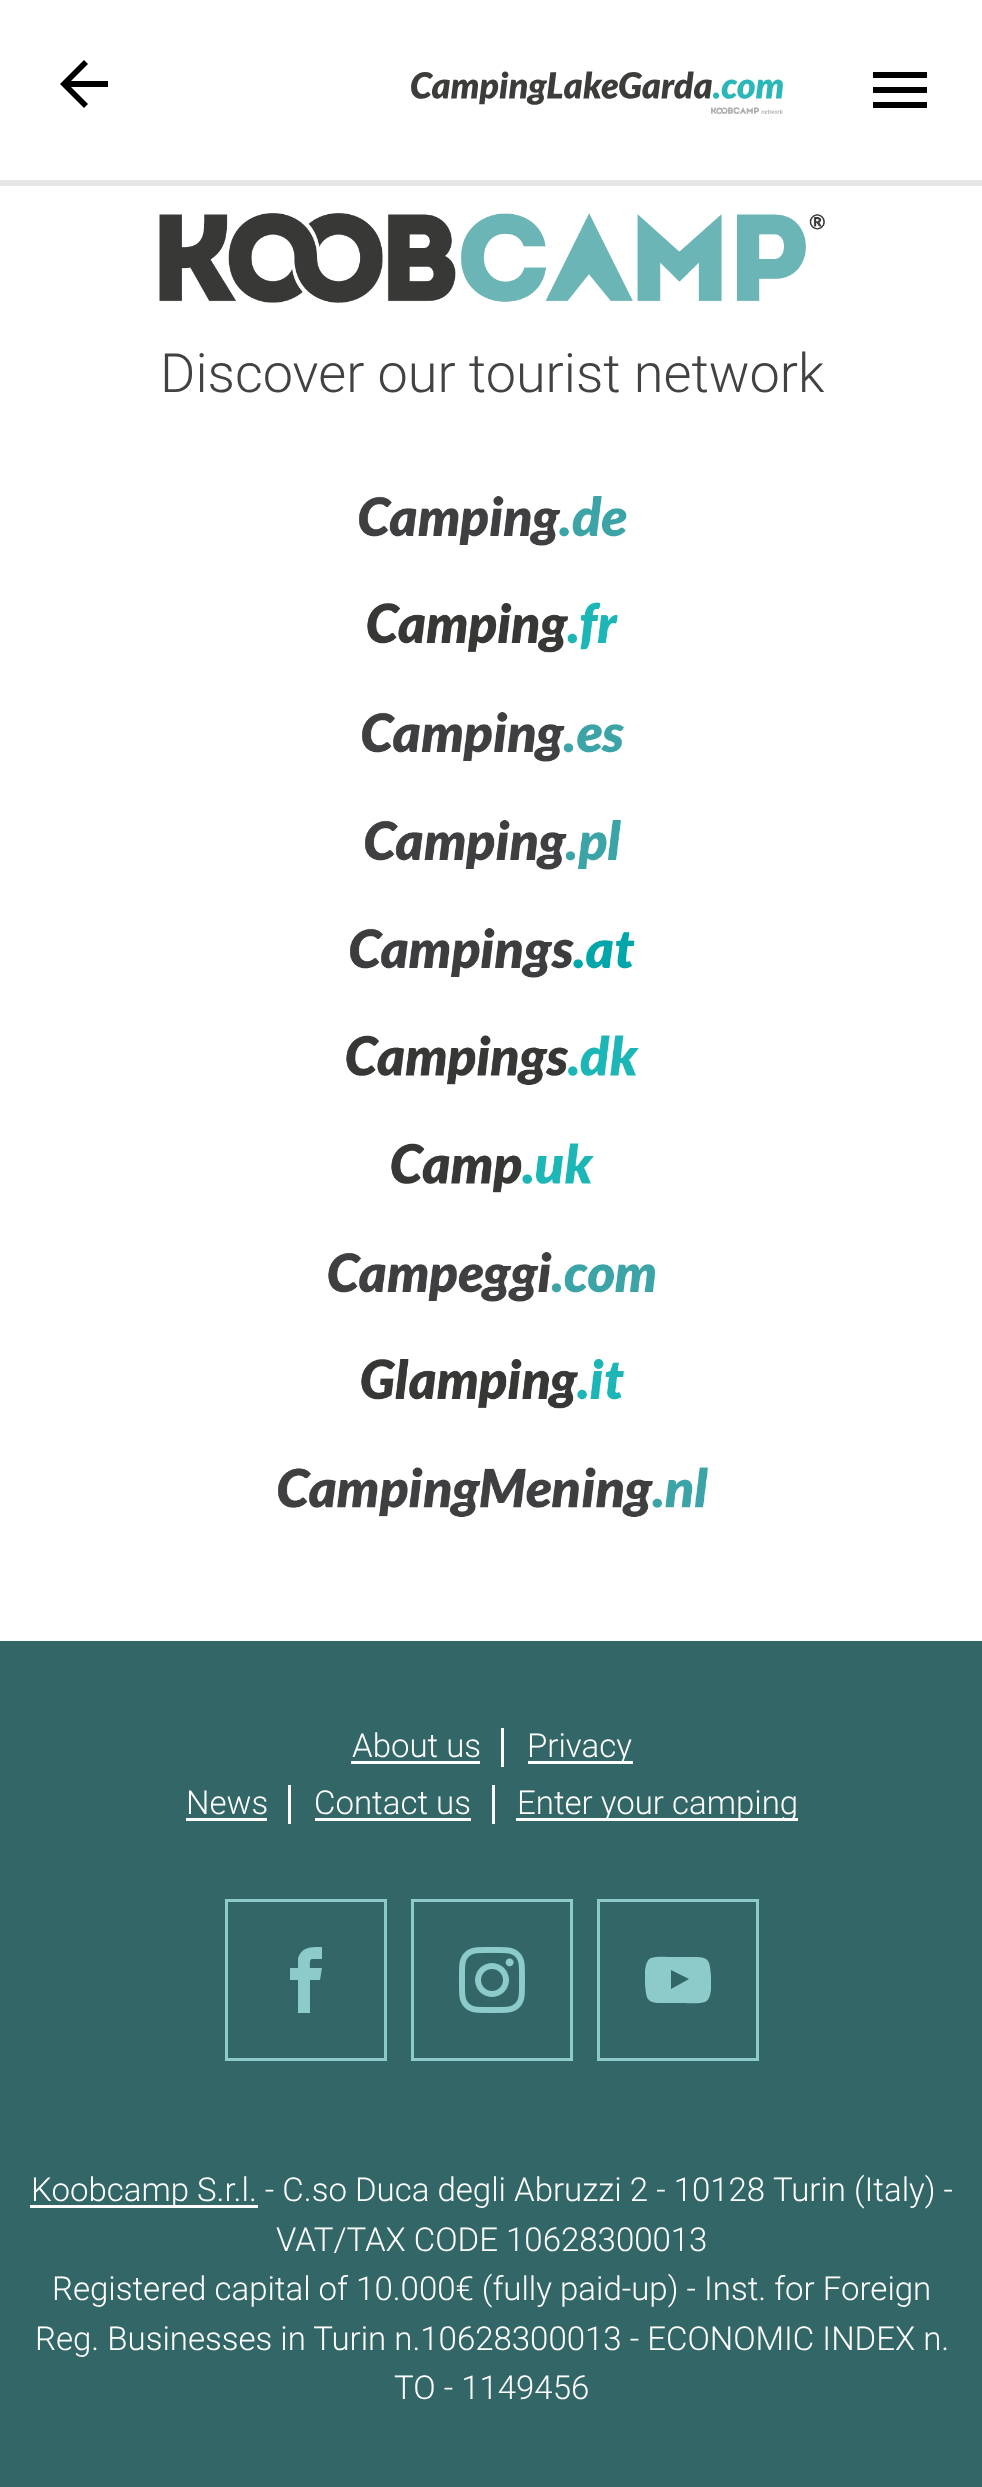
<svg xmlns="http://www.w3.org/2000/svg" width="982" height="2487">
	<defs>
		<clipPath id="clip1"><rect x="645" y="1947" width="66" height="66" /></clipPath>
	</defs>
	<rect width="100%" height="100%" fill="#FFFFFF" />
	<rect x="-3" y="-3" width="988" height="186" fill="none" stroke="#E6E6E6" stroke-width="6" />
	<path d="M108 81V87H71L88 104L84 108L60 84L84 60L88 64L71 81Z" fill="#000000" />
	<image x="411" y="71" width="372" height="43" href="assets/img1.png" />
	<path d="M873 72H927V78H873ZM873 93V87H927V93ZM873 108V102H927V108Z" fill="#000000" />
	<image x="159" y="213" width="666" height="90" href="assets/img2.png" />
	<text x="160" y="392" font-family="Roboto" font-size="54" font-weight="300" fill="#424242">Discover our tourist network</text>
	<image x="359" y="496" width="268" height="50" href="assets/img3.png" />
	<image x="367" y="602" width="251" height="51" href="assets/img4.png" />
	<image x="362" y="712" width="262" height="50" href="assets/img5.png" />
	<image x="365" y="820" width="256" height="50" href="assets/img6.png" />
	<image x="350" y="928" width="285" height="50" href="assets/img7.png" />
	<image x="346" y="1035" width="293" height="50" href="assets/img8.png" />
	<image x="391" y="1143" width="203" height="50" href="assets/img9.png" />
	<image x="328" y="1252" width="328" height="50" href="assets/img10.png" />
	<image x="361" y="1359" width="263" height="50" href="assets/img11.png" />
	<image x="278" y="1467" width="430" height="50" href="assets/img12.png" />
	<rect x="0" y="1641" width="982" height="846" fill="#336666" />
	<text x="352" y="1757" font-family="Roboto" font-size="33" font-weight="300" fill="#FFFFFF">About us</text>
	<rect x="351" y="1761" width="129" height="3" fill="#FFFFFF" />
	<rect x="501" y="1728" width="3" height="39" fill="#FFFFFF" />
	<rect x="528" y="1761" width="105" height="3" fill="#FFFFFF" />
	<g font-family="Roboto" font-size="33" font-weight="300" fill="#FFFFFF">
		<text x="527" y="1757">Privacy</text>
		<text x="186" y="1814">News</text>
	</g>
	<rect x="186" y="1818" width="81" height="3" fill="#FFFFFF" />
	<rect x="288" y="1785" width="3" height="39" fill="#FFFFFF" />
	<text x="314" y="1814" font-family="Roboto" font-size="33" font-weight="300" fill="#FFFFFF">Contact us</text>
	<rect x="315" y="1818" width="156" height="3" fill="#FFFFFF" />
	<rect x="492" y="1785" width="3" height="39" fill="#FFFFFF" />
	<rect x="516" y="1818" width="282" height="3" fill="#FFFFFF" />
	<text x="517" y="1814" font-family="Roboto" font-size="33" font-weight="300" fill="#FFFFFF">Enter your camping</text>
	<rect x="226.5" y="1900.5" width="159" height="159" fill="none" stroke="#8DCACA" stroke-width="3" />
	<path d="M312 1959H322V1947C313 1947 301 1946 298 1959V1968H290V1980H298V2013H310V1980H320L322 1968H310C310 1966 309 1959 312 1959" fill="#8DCACA" />
	<rect x="412.5" y="1900.5" width="159" height="159" fill="none" stroke="#8DCACA" stroke-width="3" />
	<image x="459" y="1947" width="66" height="66" href="assets/img13.png" />
	<rect x="598.5" y="1900.5" width="159" height="159" fill="none" stroke="#8DCACA" stroke-width="3" />
	<g clip-path="url(#clip1)">
		<path d="M710 1967C709 1957 702 1957 694 1957H673C668 1957 656 1956 651 1958C642 1962 645 1986 646 1993C647 2004 656 2003 665 2003H683C688 2003 700 2004 705 2002C714 1998 711 1974 710 1967ZM671 1989V1970L689 1979Z" fill="#8DCACA" />
	</g>
	<rect x="30" y="2205" width="228" height="3" fill="#FFFFFF" />
	<g font-family="Roboto" font-size="33" font-weight="300" fill="#FFFFFF">
		<text x="31" y="2201">Koobcamp S.r.l. - C.so Duca degli Abruzzi 2 - 10128</text>
		<text x="773" y="2201">Turin (Italy) -</text>
		<text x="276" y="2251">VAT/TAX CODE 10628300013</text>
		<text x="52" y="2300">Registered capital of 10.000€ (fully paid-up) - Inst. for Foreign</text>
		<text x="35" y="2350">Reg. Businesses in Turin n.10628300013 - ECONOMIC INDEX n.</text>
		<text x="394" y="2399">TO - 1149456</text>
	</g>
</svg>
